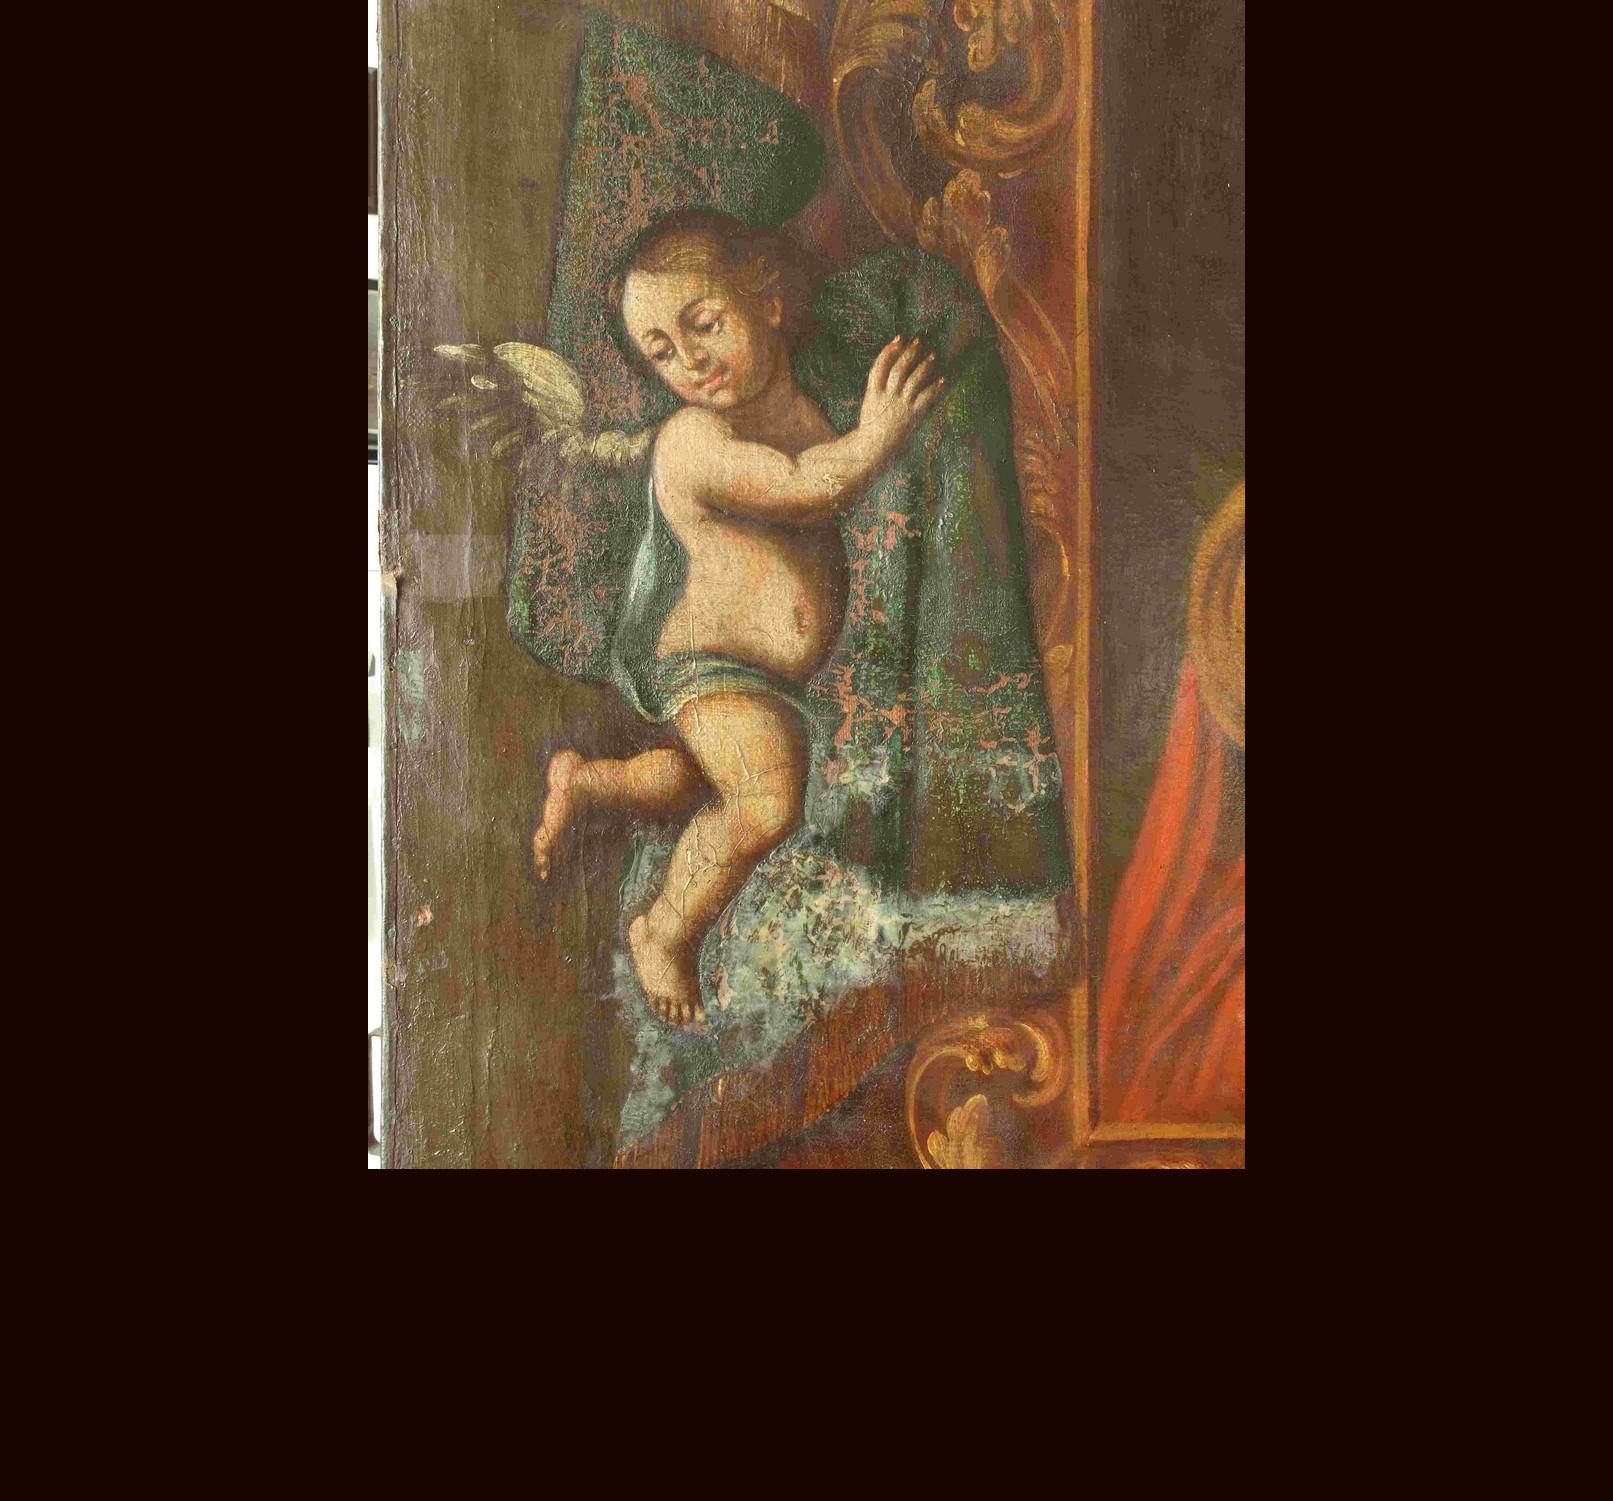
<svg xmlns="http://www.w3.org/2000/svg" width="1613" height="1501">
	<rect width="100%" height="100%" fill="#180400" />
	<image x="368" y="0" width="877" height="1169" href="assets/img1.png" />
</svg>
